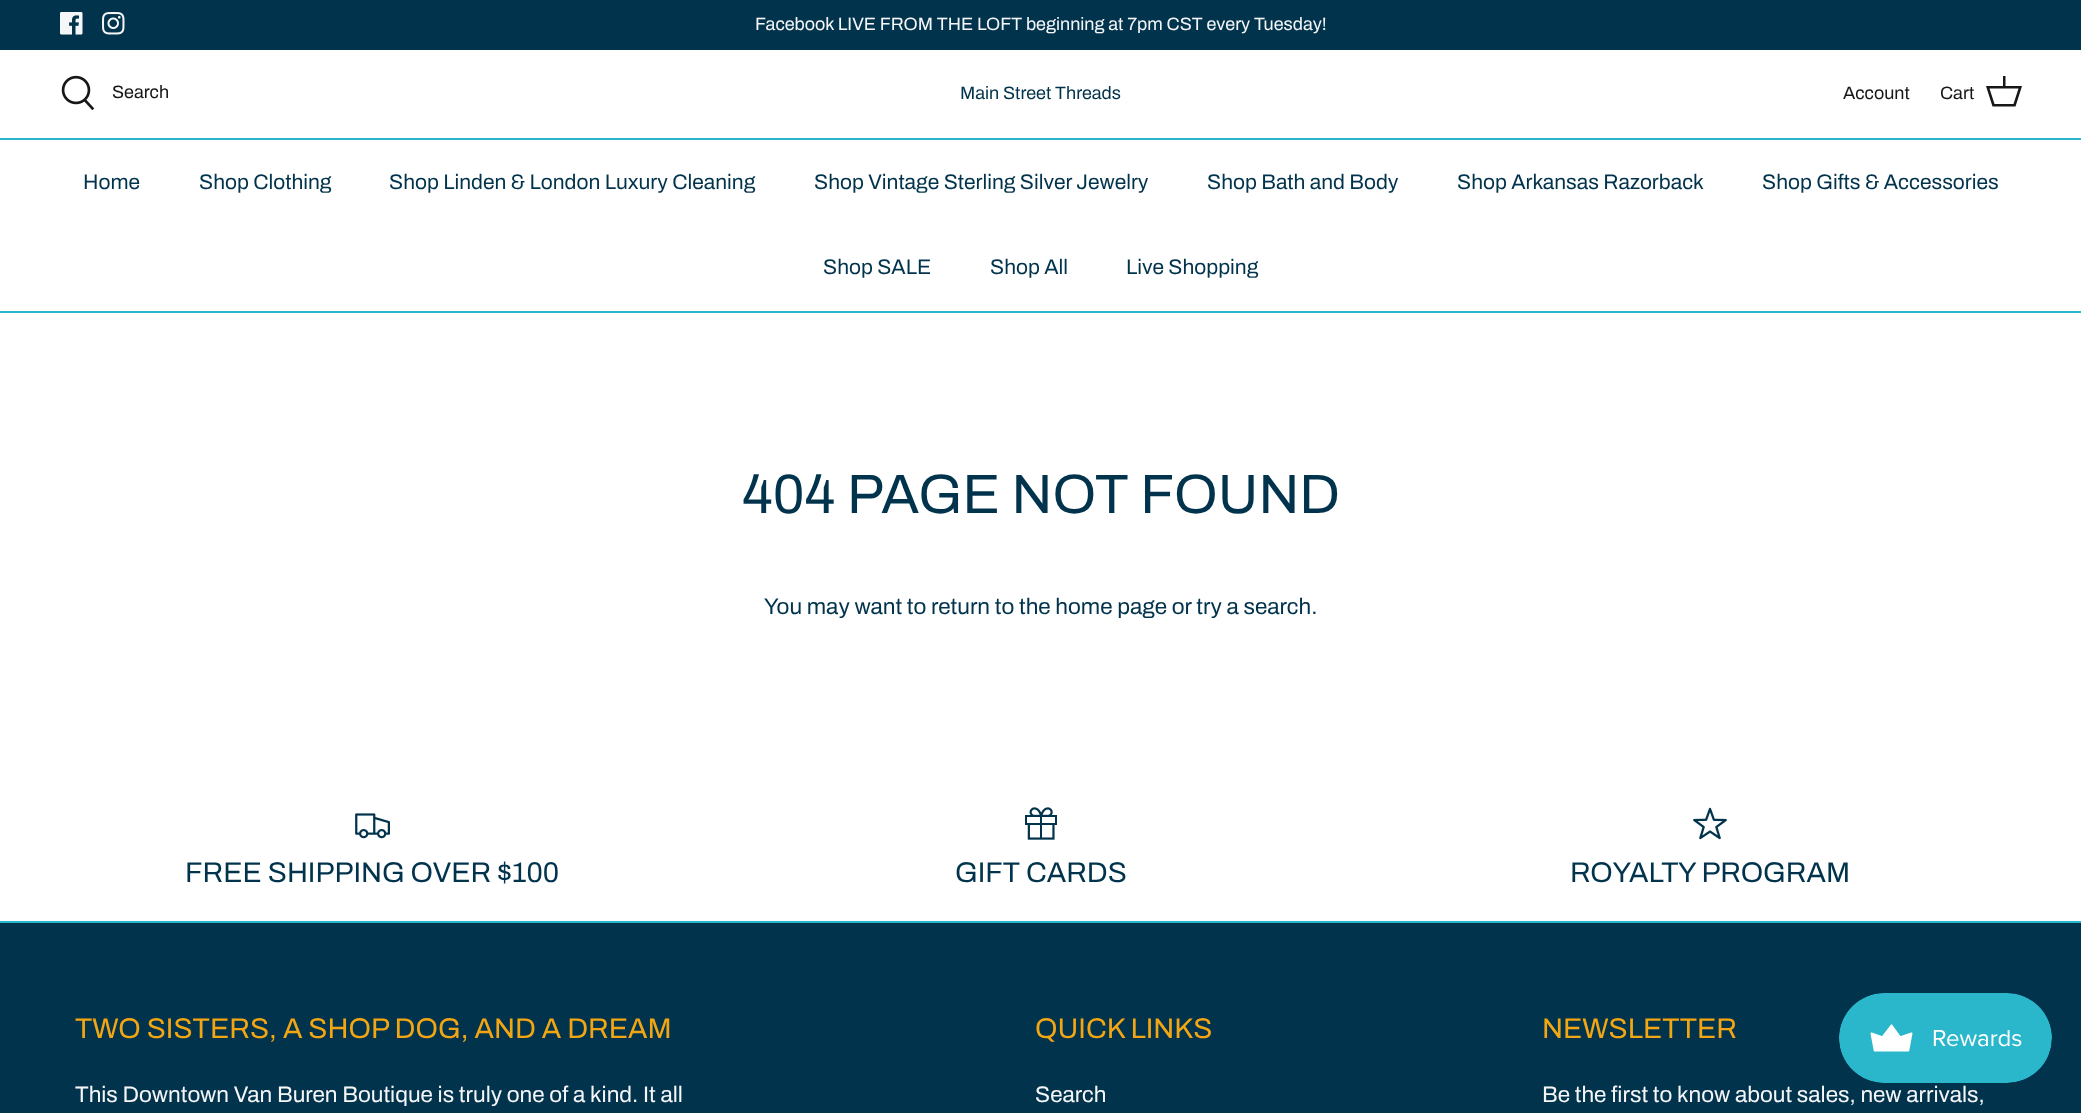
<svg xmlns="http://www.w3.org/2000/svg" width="2081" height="1113">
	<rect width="100%" height="100%" fill="#FFFFFF" />
	<rect x="0" y="0" width="2081" height="50" fill="#02334C" />
	<image x="60" y="12" width="23" height="23" href="assets/img1.png" />
	<image x="102" y="12" width="23" height="23" href="assets/img2.png" />
	<text x="755" y="30" font-family="Archivo" font-size="18" fill="#F4F6F8">Facebook LIVE FROM THE LOFT beginning at 7pm CST every Tuesday!</text>
	<rect x="0" y="138" width="2081" height="2" fill="#2AB7CB" />
	<image x="61" y="75" width="34" height="36" href="assets/img3.png" />
	<text x="112" y="98" font-family="Archivo" font-size="18" fill="#171717">Search</text>
	<text x="960" y="99" font-family="Archivo" font-size="18" fill="#02334C">Main Street Threads</text>
	<g font-family="Archivo" font-size="18" fill="#171717">
		<text x="1843" y="99">Account</text>
		<text x="1940" y="99">Cart</text>
	</g>
	<path d="M2003 86V76H2005.5V86H2022L2015.5 106.5H1992.5L1986 86ZM1989.5 88.5L1994.5 104H2013.5L2018.5 88.5Z" fill="#171717" />
	<rect x="0" y="311" width="2081" height="2" fill="#2AB7CB" />
	<g font-family="Archivo" font-size="21" fill="#02334C">
		<text x="83" y="189">Home</text>
		<text x="199" y="189">Shop Clothing</text>
		<text x="389" y="189">Shop Linden &amp; London Luxury Cleaning</text>
		<text x="814" y="189">Shop Vintage Sterling Silver Jewelry</text>
		<text x="1207" y="189">Shop Bath and Body</text>
		<text x="1457" y="189">Shop Arkansas Razorback</text>
		<text x="1762" y="189">Shop Gifts &amp; Accessories</text>
		<text x="823" y="274">Shop SALE</text>
		<text x="990" y="274">Shop All</text>
		<text x="1126" y="274">Live Shopping</text>
	</g>
	<text x="742" y="513" font-family="Archivo" font-size="55.5" fill="#02334C">404 PAGE NOT FOUND</text>
	<text x="764" y="614" font-family="Archivo" font-size="22.5" fill="#02334C">You may want to return to the home page or try a search.</text>
	<rect x="0" y="923" width="2081" height="190" fill="#02334C" />
	<image x="355" y="813" width="35" height="26" href="assets/img4.png" />
	<text x="185" y="882" font-family="Archivo" font-size="28.5" fill="#02334C">FREE SHIPPING OVER $100</text>
	<image x="1025" y="807" width="32" height="33" href="assets/img5.png" />
	<text x="955" y="882" font-family="Archivo" font-size="28.5" fill="#02334C">GIFT CARDS</text>
	<image x="1693" y="807" width="34" height="33" href="assets/img6.png" />
	<text x="1570" y="882" font-family="Archivo" font-size="28.5" fill="#02334C">ROYALTY PROGRAM</text>
	<rect x="0" y="921" width="2081" height="2" fill="#2AB7CB" />
	<text x="75" y="1038" font-family="Archivo" font-size="28.5" fill="#F2A613">TWO SISTERS, A SHOP DOG, AND A DREAM</text>
	<text x="75" y="1102" font-family="Archivo" font-size="22.5" fill="#F4F6F8">This Downtown Van Buren Boutique is truly one of a kind. It all</text>
	<text x="1035" y="1038" font-family="Archivo" font-size="28.5" fill="#F2A613">QUICK LINKS</text>
	<text x="1035" y="1102" font-family="Archivo" font-size="22.5" fill="#F4F6F8">Search</text>
	<text x="1542" y="1038" font-family="Archivo" font-size="28.5" fill="#F2A613">NEWSLETTER</text>
	<text x="1542" y="1102" font-family="Archivo" font-size="22.5" fill="#F4F6F8">Be the first to know about sales, new arrivals,</text>
	<image x="1839" y="993" width="213" height="90" href="assets/img7.png" />
</svg>
